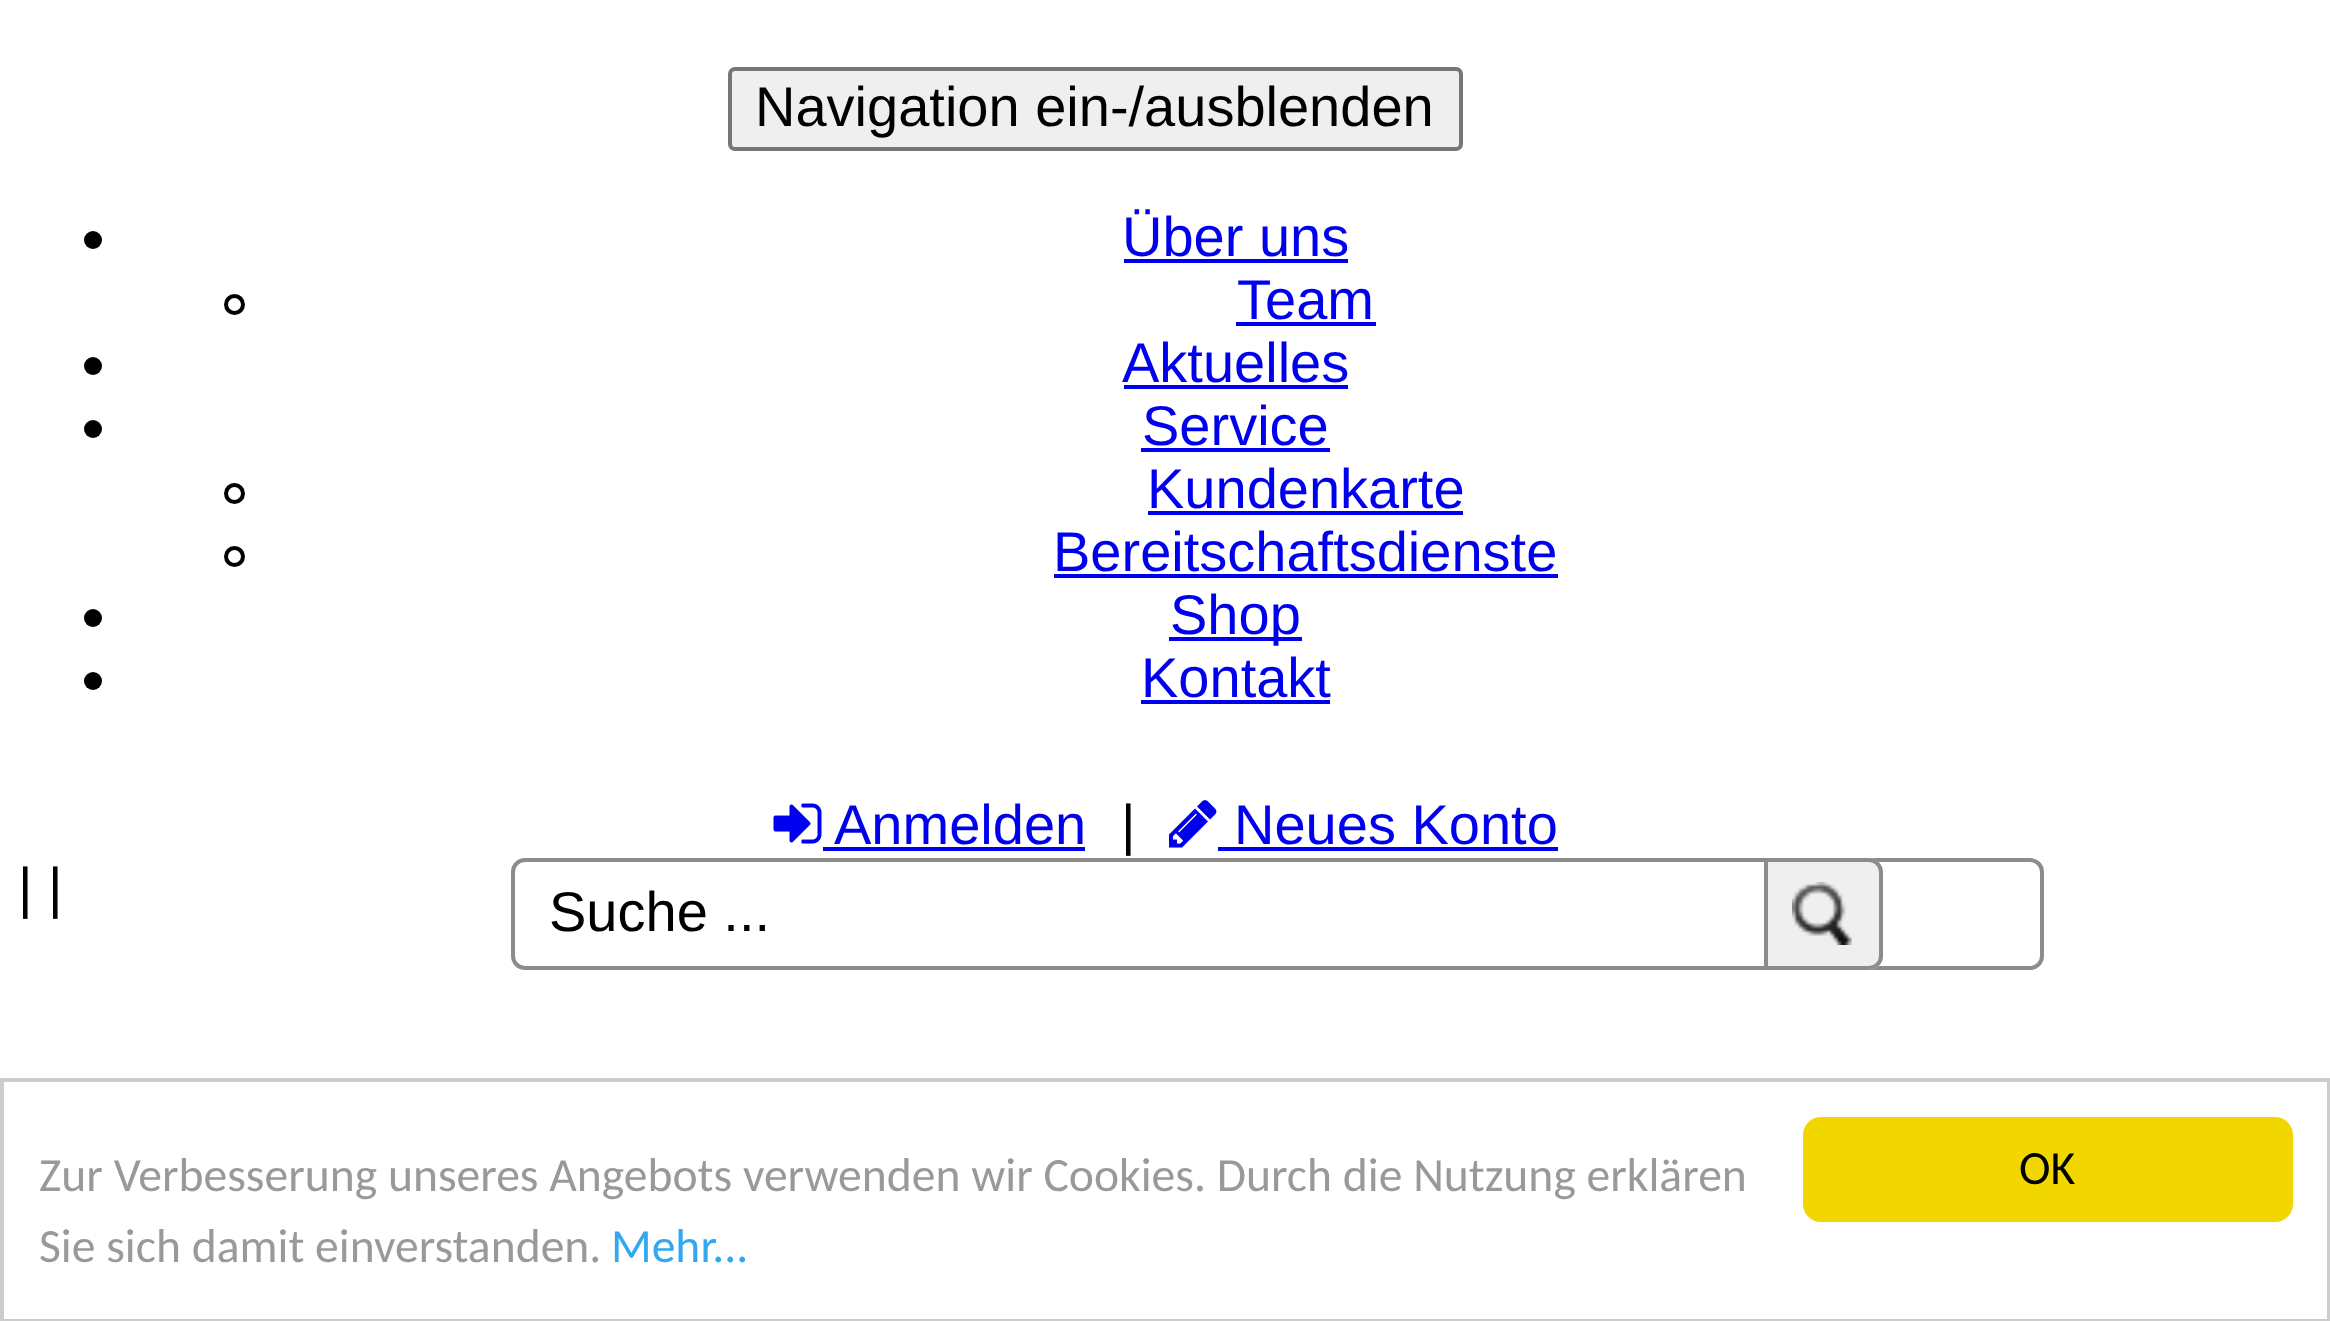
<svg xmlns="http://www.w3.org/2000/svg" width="2330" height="1321">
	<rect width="100%" height="100%" fill="#FFFFFF" />
	<rect x="730" y="69" width="731" height="80" rx="5" fill="#EFEFEF" stroke="#767676" stroke-width="4" />
	<text x="755" y="126" font-family="Liberation Sans" font-size="56" fill="#000000">Navigation ein-/ausblenden</text>
	<circle cx="93" cy="240" r="9" fill="#000000" />
	<text x="1122" y="256" font-family="Liberation Sans" font-size="56" fill="#0000EE">Über uns</text>
	<rect x="1124" y="259" width="224" height="4" fill="#0000EE" />
	<circle cx="234.5" cy="304.5" r="8.5" fill="none" stroke="#000000" stroke-width="4" />
	<text x="1237" y="319" font-family="Liberation Sans" font-size="56" fill="#0000EE">Team</text>
	<rect x="1236" y="322" width="140" height="4" fill="#0000EE" />
	<circle cx="93" cy="366" r="9" fill="#000000" />
	<text x="1122" y="382" font-family="Liberation Sans" font-size="56" fill="#0000EE">Aktuelles</text>
	<rect x="1124" y="385" width="224" height="4" fill="#0000EE" />
	<circle cx="93" cy="429" r="9" fill="#000000" />
	<text x="1142" y="445" font-family="Liberation Sans" font-size="56" fill="#0000EE">Service</text>
	<rect x="1141" y="448" width="189" height="4" fill="#0000EE" />
	<circle cx="234.5" cy="493.5" r="8.5" fill="none" stroke="#000000" stroke-width="4" />
	<text x="1147" y="508" font-family="Liberation Sans" font-size="56" fill="#0000EE">Kundenkarte</text>
	<rect x="1148" y="511" width="315" height="4" fill="#0000EE" />
	<circle cx="234.5" cy="556.5" r="8.5" fill="none" stroke="#000000" stroke-width="4" />
	<text x="1053" y="571" font-family="Liberation Sans" font-size="56" fill="#0000EE">Bereitschaftsdienste</text>
	<rect x="1054" y="574" width="504" height="4" fill="#0000EE" />
	<circle cx="93" cy="618" r="9" fill="#000000" />
	<rect x="1169" y="637" width="133" height="4" fill="#0000EE" />
	<text x="1170" y="634" font-family="Liberation Sans" font-size="56" fill="#0000EE">Shop</text>
	<circle cx="93" cy="681" r="9" fill="#000000" />
	<text x="1141" y="697" font-family="Liberation Sans" font-size="56" fill="#0000EE">Kontakt</text>
	<rect x="1141" y="700" width="189" height="4" fill="#0000EE" />
	<image x="773" y="803" width="49" height="41" href="assets/img1.png" />
	<text x="834" y="844" font-family="Liberation Sans" font-size="56" fill="#0000EE">Anmelden</text>
	<rect x="823" y="847" width="262" height="4" fill="#0000EE" />
	<text x="1121" y="844" font-family="Liberation Sans" font-size="56" fill="#000000">|</text>
	<image x="1169" y="800" width="48" height="48" href="assets/img2.png" />
	<text x="1234" y="844" font-family="Liberation Sans" font-size="56" fill="#0000EE">Neues Konto</text>
	<rect x="1218" y="847" width="340" height="4" fill="#0000EE" />
	<text x="18" y="907" font-family="Liberation Sans" font-size="56" fill="#000000">| |</text>
	<rect x="513" y="860" width="1529" height="108" rx="12" fill="none" stroke="#8C8C8C" stroke-width="4" />
	<text x="549" y="931" font-family="Liberation Sans" font-size="56" fill="#000000">Suche ...</text>
	<path d="M1764 858H1869C1876.5 858 1883 864.5 1883 872V956C1883 963.5 1876.5 970 1869 970H1764Z" fill="#EFEFEF" />
	<image x="1792" y="882" width="60" height="63" href="assets/img3.png" />
	<path d="M1766 860H1869C1875.5 860 1881 865.5 1881 872V956C1881 962.5 1875.5 968 1869 968H1766Z" fill="none" stroke="#8C8C8C" stroke-width="4" />
	<rect x="2" y="1080" width="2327" height="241" fill="none" stroke="#CCCCCC" stroke-width="4" />
	<g font-family="Carlito" font-size="47.6" fill="#999999">
		<text x="39" y="1191">Zur Verbesserung unseres Angebots verwenden wir Cookies. Durch die Nutzung erklären</text>
		<text x="39" y="1262">Sie sich damit einverstanden.</text>
	</g>
	<text x="611" y="1262" font-family="Carlito" font-size="47.6" fill="#31A8F0">Mehr...</text>
	<rect x="1803" y="1117" width="490" height="105" rx="18" fill="#F1D600" />
	<text x="2019" y="1184" font-family="Carlito" font-size="47.6" fill="#000000">OK</text>
</svg>
